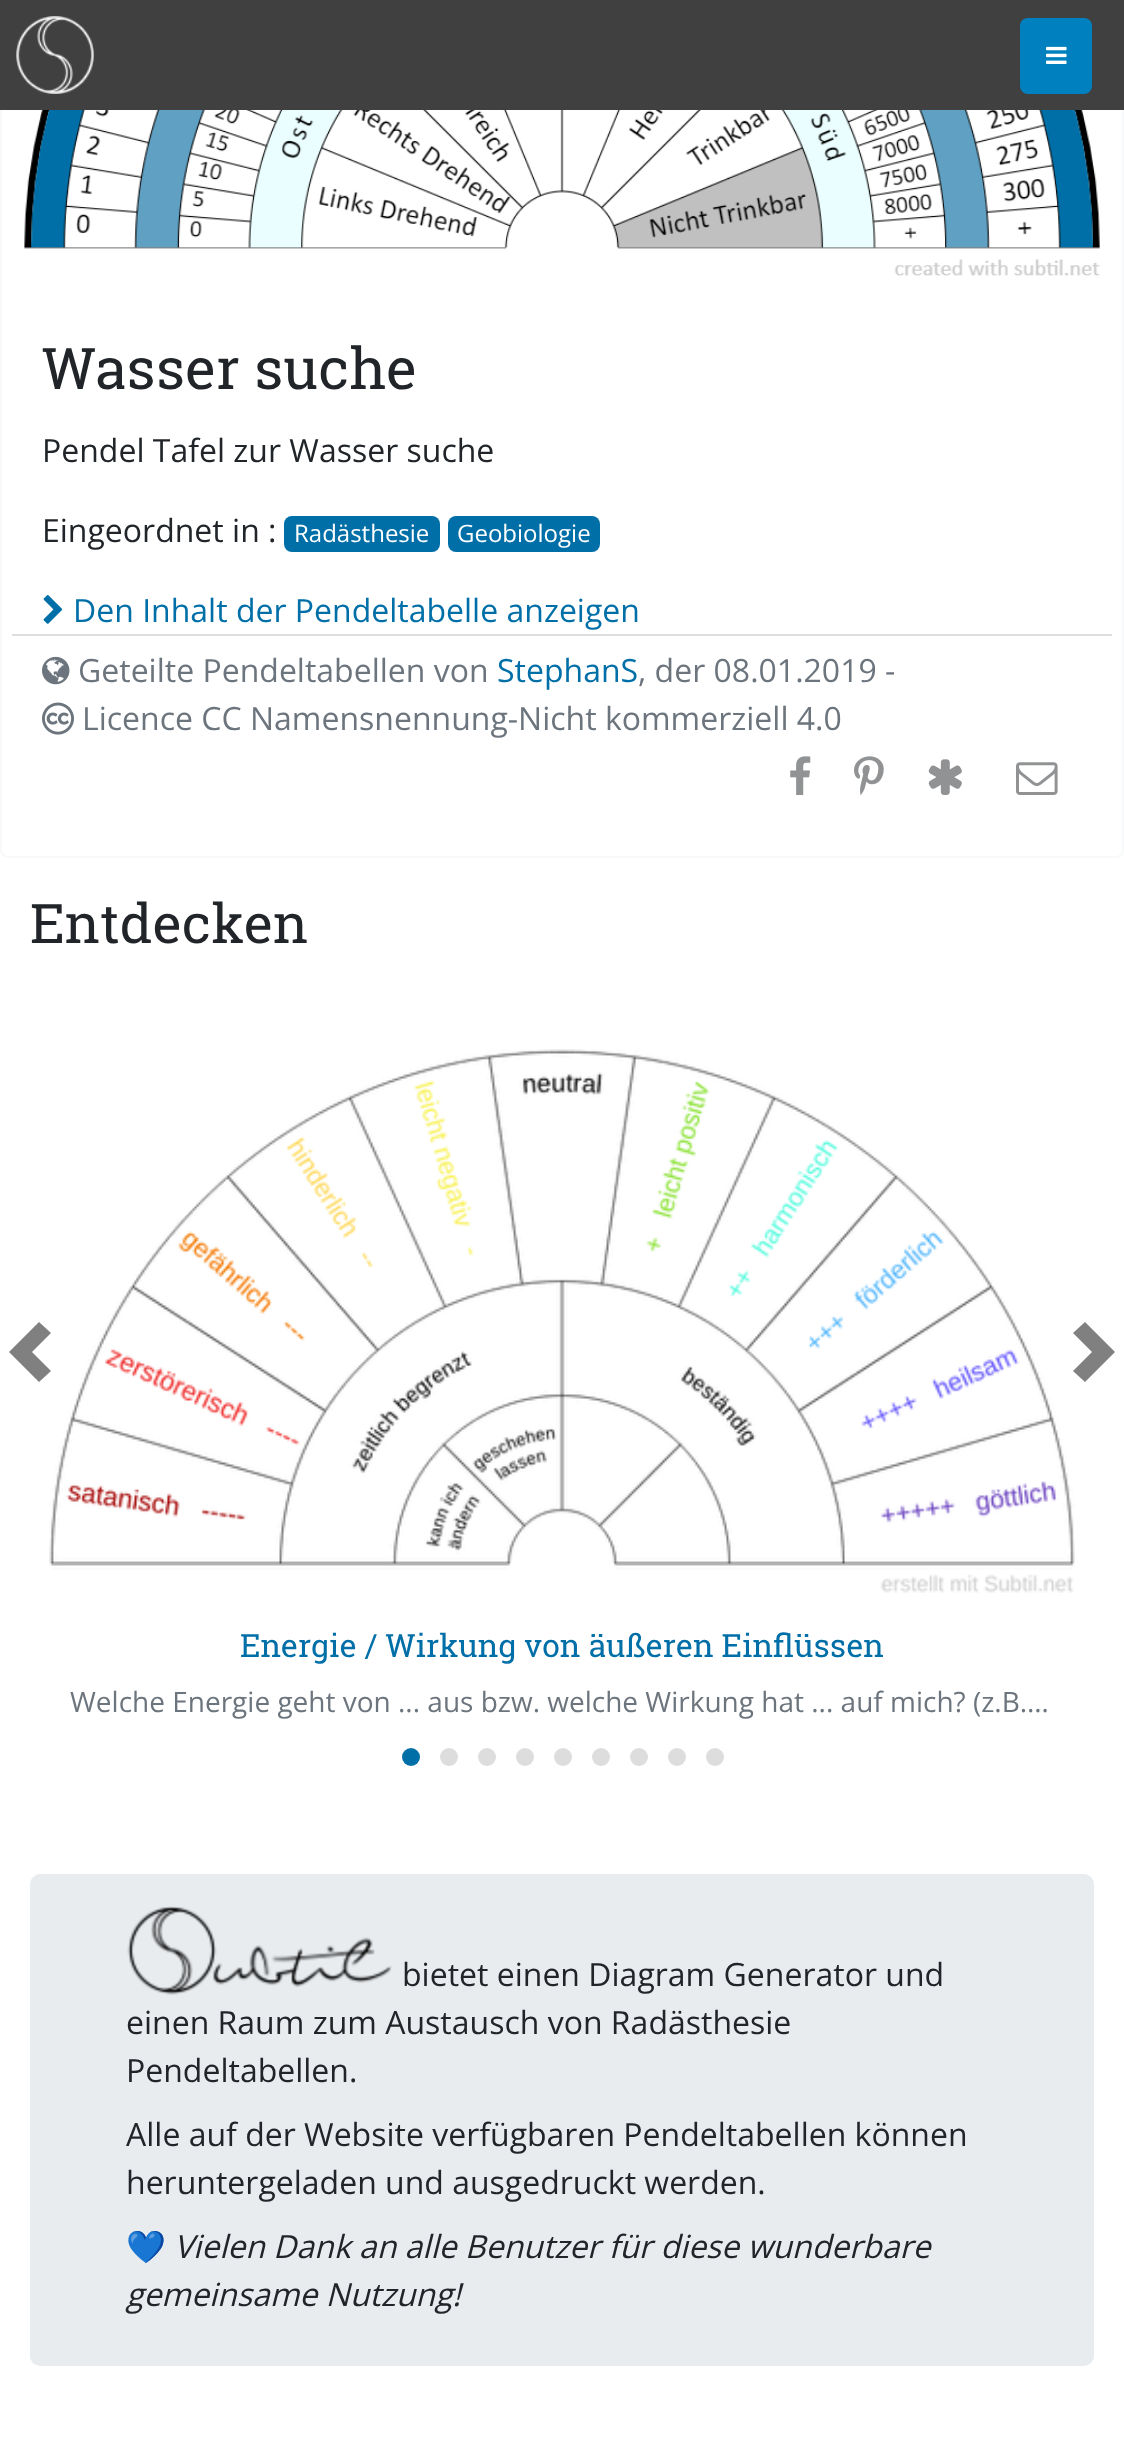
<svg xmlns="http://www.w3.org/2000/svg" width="1124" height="2440">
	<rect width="100%" height="100%" fill="#FFFFFF" />
	<rect x="1" y="-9" width="1122" height="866" rx="7" fill="none" stroke="#F8F9FA" stroke-width="2" />
	<rect x="0" y="0" width="1124" height="110" fill="#404040" />
	<image x="16" y="16" width="78" height="78" href="assets/img1.png" />
	<rect x="1020" y="18" width="72" height="76" rx="8" fill="#0180C0" />
	<image x="1046" y="46" width="21" height="18" href="assets/img2.png" />
	<image x="24" y="110" width="1076" height="166" href="assets/img3.png" />
	<text x="42" y="389" font-family="Roboto Slab" font-size="57.5" fill="#212529">Wasser suche</text>
	<g font-family="Open Sans" font-size="32" fill="#212529">
		<text x="42" y="462">Pendel Tafel zur Wasser suche</text>
		<text x="42" y="542">Eingeordnet in :</text>
	</g>
	<rect x="284" y="516" width="156" height="36" rx="8" fill="#006FA8" />
	<text x="294" y="542" font-family="Open Sans" font-size="24" fill="#FFFFFF">Radästhesie</text>
	<rect x="448" y="516" width="152" height="36" rx="8" fill="#006FA8" />
	<text x="457" y="542" font-family="Open Sans" font-size="24" fill="#FFFFFF">Geobiologie</text>
	<image x="43" y="595" width="20" height="29" href="assets/img4.png" />
	<text x="73" y="622" font-family="Open Sans" font-size="32" fill="#006FA8">Den Inhalt der Pendeltabelle anzeigen</text>
	<rect x="12" y="634" width="1100" height="2" fill="#DEDEDE" />
	<image x="42" y="656" width="28" height="29" href="assets/img5.png" />
	<text x="78" y="682" font-family="Open Sans" font-size="32" fill="#6C757D">Geteilte Pendeltabellen von</text>
	<text x="497" y="682" font-family="Open Sans" font-size="32" fill="#006FA8">StephanS</text>
	<text x="638" y="682" font-family="Open Sans" font-size="32" fill="#6C757D">, der 08.01.2019 -</text>
	<image x="42" y="702" width="32" height="33" href="assets/img6.png" />
	<text x="82" y="730" font-family="Open Sans" font-size="32" fill="#6C757D">Licence CC Namensnennung-Nicht kommerziell 4.0</text>
	<image x="790" y="756" width="21" height="39" href="assets/img7.png" />
	<image x="854" y="756" width="30" height="39" href="assets/img8.png" />
	<image x="928" y="759" width="34" height="36" href="assets/img9.png" />
	<image x="1016" y="762" width="42" height="33" href="assets/img10.png" />
	<text x="30" y="943" font-family="Roboto Slab" font-size="54.5" fill="#212529">Entdecken</text>
	<image x="49" y="1049" width="1026" height="544" href="assets/img11.png" />
	<path d="M39 1322L9 1352L39 1382L51 1371L32 1352L51 1333Z" fill="#808080" />
	<path d="M1085 1322L1073 1333L1092 1352L1073 1371L1085 1382L1115 1352Z" fill="#808080" />
	<text x="240" y="1657" font-family="Roboto Slab" font-size="32" fill="#006FA8">Energie / Wirkung von äußeren Einflüssen</text>
	<text x="70" y="1712" font-family="Open Sans" font-size="28" fill="#6C757D">Welche Energie geht von ... aus bzw. welche Wirkung hat ... auf mich? (z.B.…</text>
	<circle cx="411" cy="1757" r="9" fill="#006FA8" />
	<circle cx="449" cy="1757" r="9" fill="#DDDDDD" />
	<circle cx="487" cy="1757" r="9" fill="#DDDDDD" />
	<circle cx="525" cy="1757" r="9" fill="#DDDDDD" />
	<circle cx="563" cy="1757" r="9" fill="#DDDDDD" />
	<circle cx="601" cy="1757" r="9" fill="#DDDDDD" />
	<circle cx="639" cy="1757" r="9" fill="#DDDDDD" />
	<circle cx="677" cy="1757" r="9" fill="#DDDDDD" />
	<circle cx="715" cy="1757" r="9" fill="#DDDDDD" />
	<rect x="30" y="1874" width="1064" height="492" rx="10" fill="#E9ECEF" />
	<image x="127" y="1906" width="265" height="89" href="assets/img12.png" />
	<g font-family="Open Sans" font-size="32" fill="#212529">
		<text x="402" y="1986">bietet einen Diagram Generator und</text>
		<text x="126" y="2034">einen Raum zum Austausch von Radästhesie</text>
		<text x="126" y="2082">Pendeltabellen.</text>
		<text x="126" y="2146">Alle auf der Website verfügbaren Pendeltabellen können</text>
		<text x="126" y="2194">heruntergeladen und ausgedruckt werden.</text>
	</g>
	<text x="126" y="2258" font-family="Noto Color Emoji" font-size="32" fill="#212529">💙</text>
	<g font-family="Open Sans" font-size="32" font-style="italic" fill="#212529">
		<text x="174" y="2258">Vielen Dank an alle Benutzer für diese wunderbare</text>
		<text x="126" y="2306">gemeinsame Nutzung!</text>
	</g>
</svg>
